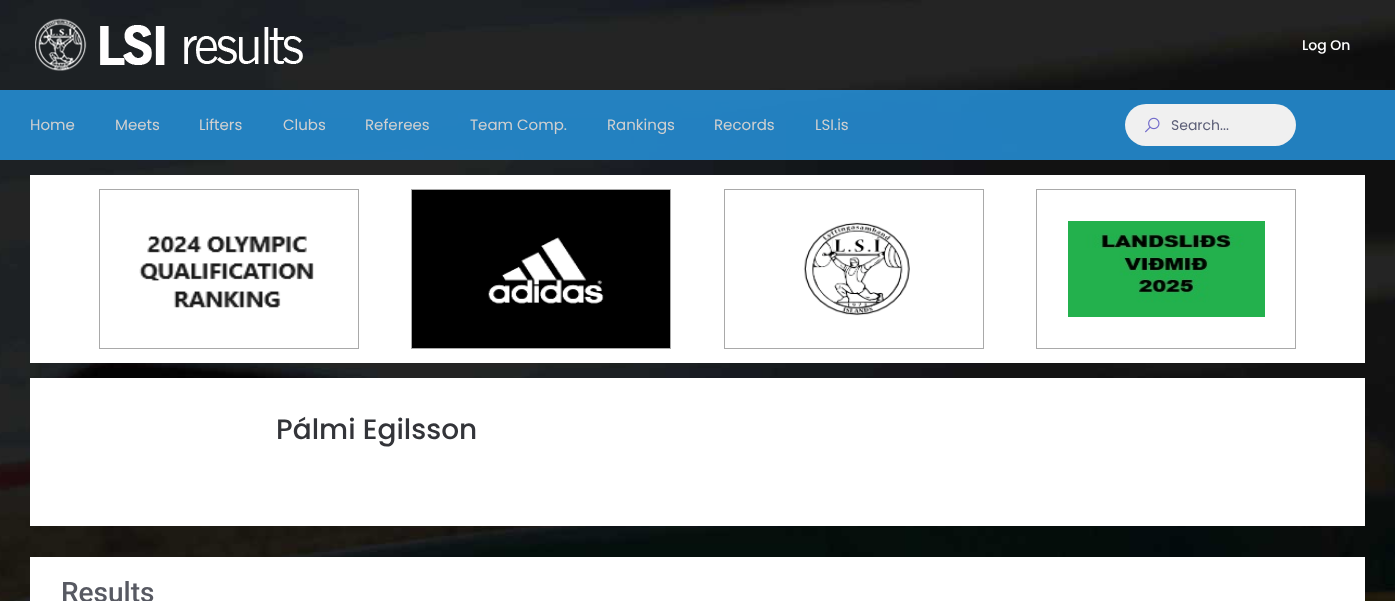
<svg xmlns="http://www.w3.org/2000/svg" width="1395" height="601">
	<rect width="100%" height="100%" fill="#FFFFFF" />
	<image x="0" y="0" width="1395" height="601" href="assets/img1.png" />
	<image x="35" y="18" width="268" height="53" href="assets/img2.png" />
	<text x="1302" y="50" font-family="Poppins" font-size="14" font-weight="500" fill="#FFFFFF">Log On</text>
	<rect x="0" y="90" width="1395" height="70" fill="#258CD1" fill-opacity="0.9" />
	<g font-family="Poppins" font-size="15" fill="#D0D0D0">
		<text x="30" y="130">Home</text>
		<text x="115" y="130">Meets</text>
		<text x="199" y="130">Lifters</text>
		<text x="283" y="130">Clubs</text>
		<text x="365" y="130">Referees</text>
		<text x="470" y="130">Team Comp.</text>
		<text x="607" y="130">Rankings</text>
		<text x="714" y="130">Records</text>
		<text x="815" y="130">LSI.is</text>
	</g>
	<rect x="1125" y="104" width="171" height="42" rx="21" fill="#F0F0F0" />
	<image x="1145" y="117" width="15" height="16" href="assets/img3.png" />
	<text x="1171" y="130" font-family="Poppins" font-size="14" fill="#5C5F77">Search...</text>
	<rect x="30" y="175" width="1335" height="188" fill="#FFFFFF" />
	<rect x="99.5" y="189.5" width="259" height="159" fill="none" stroke="#A9A9A9" />
	<image x="139" y="236" width="175" height="72" href="assets/img4.png" />
	<rect x="411.5" y="189.5" width="259" height="159" fill="#000000" stroke="#A9A9A9" />
	<image x="488" y="237" width="116" height="67" href="assets/img5.png" />
	<rect x="724.5" y="189.5" width="259" height="159" fill="none" stroke="#A9A9A9" />
	<image x="803" y="222" width="107" height="94" href="assets/img6.png" />
	<rect x="1036.5" y="189.5" width="259" height="159" fill="none" stroke="#A9A9A9" />
	<image x="1068" y="221" width="197" height="96" href="assets/img7.png" />
	<rect x="30" y="378" width="1335" height="148" fill="#FFFFFF" />
	<text x="276" y="439" font-family="Poppins" font-size="28" font-weight="500" fill="#333439">Pálmi Egilsson</text>
	<rect x="30" y="557" width="1335" height="44" fill="#FFFFFF" />
	<text x="61" y="602" font-family="Roboto" font-size="28" font-weight="500" fill="#575962">Results</text>
</svg>
